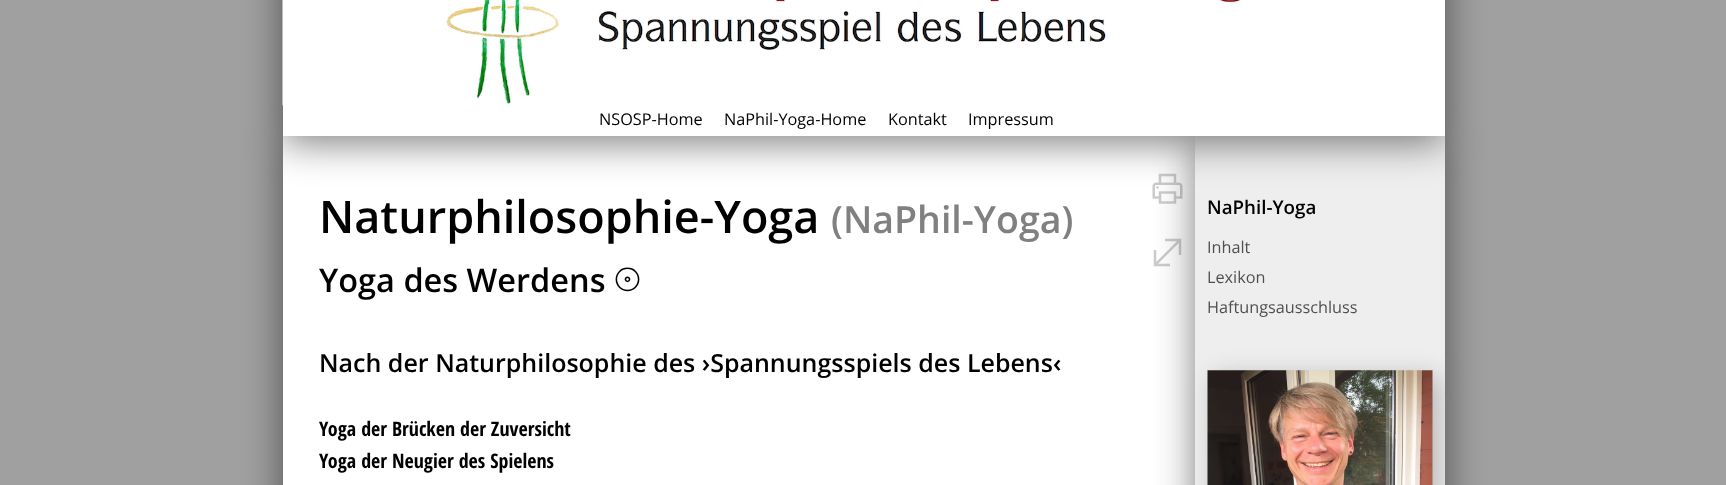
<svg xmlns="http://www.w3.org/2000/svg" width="1726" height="485">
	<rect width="100%" height="100%" fill="#A0A0A0" />
	<rect x="283" y="143" width="912" height="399" fill="#000000" fill-opacity="0.5" filter="blur(19px)" />
	<rect x="283" y="136" width="912" height="349" fill="#FFFFFF" />
	<rect x="1195" y="143" width="250" height="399" fill="#000000" fill-opacity="0.5" filter="blur(19px)" />
	<rect x="1195" y="136" width="250" height="349" fill="#EEEEEE" />
	<rect x="283" y="-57" width="1162" height="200" fill="#000000" fill-opacity="0.5" filter="blur(19px)" />
	<rect x="283" y="0" width="1162" height="136" fill="#FFFFFF" />
	<image x="282" y="0" width="959" height="106" href="assets/img1.png" />
	<g font-family="Open Sans" font-size="16.25" fill="#000000">
		<text x="599" y="125">NSOSP-Home</text>
		<text x="724" y="125">NaPhil-Yoga-Home</text>
		<text x="888" y="125">Kontakt</text>
		<text x="968" y="125">Impressum</text>
	</g>
	<text x="319" y="233" font-family="Open Sans" font-size="45" font-weight="600" fill="#000000">Naturphilosophie-Yoga</text>
	<text x="831" y="233" font-family="Open Sans" font-size="37.5" font-weight="600" fill="#808080">(NaPhil-Yoga)</text>
	<text x="319" y="292" font-family="Open Sans" font-size="32.5" font-weight="600" fill="#000000">Yoga des Werdens</text>
	<text x="614" y="292" font-family="Noto Sans Egyptian Hieroglyphs" font-size="32.5" font-weight="700" fill="#000000">𓇳</text>
	<text x="319" y="372" font-family="Open Sans" font-size="25" font-weight="600" fill="#000000">Nach der Naturphilosophie des ›Spannungsspiels des Lebens‹</text>
	<g font-family="Open Sans Condensed" font-size="20" font-weight="700" fill="#000000">
		<text x="319" y="436">Yoga der Brücken der Zuversicht</text>
		<text x="319" y="468">Yoga der Neugier des Spielens</text>
	</g>
	<image x="1152" y="173" width="31" height="31" href="assets/img2.png" />
	<image x="1153" y="238" width="29" height="29" href="assets/img3.png" />
	<text x="1207" y="214" font-family="Open Sans" font-size="18.75" font-weight="600" fill="#000000">NaPhil-Yoga</text>
	<g font-family="Open Sans" font-size="16.25" fill="#505050">
		<text x="1207" y="253">Inhalt</text>
		<text x="1207" y="283">Lexikon</text>
		<text x="1207" y="313">Haftungsausschluss</text>
	</g>
	<rect x="1214" y="376" width="225" height="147" fill="#808080" fill-opacity="0.5" filter="blur(12.5px)" />
	<image x="1207" y="370" width="226" height="115" href="assets/img4.png" />
</svg>
